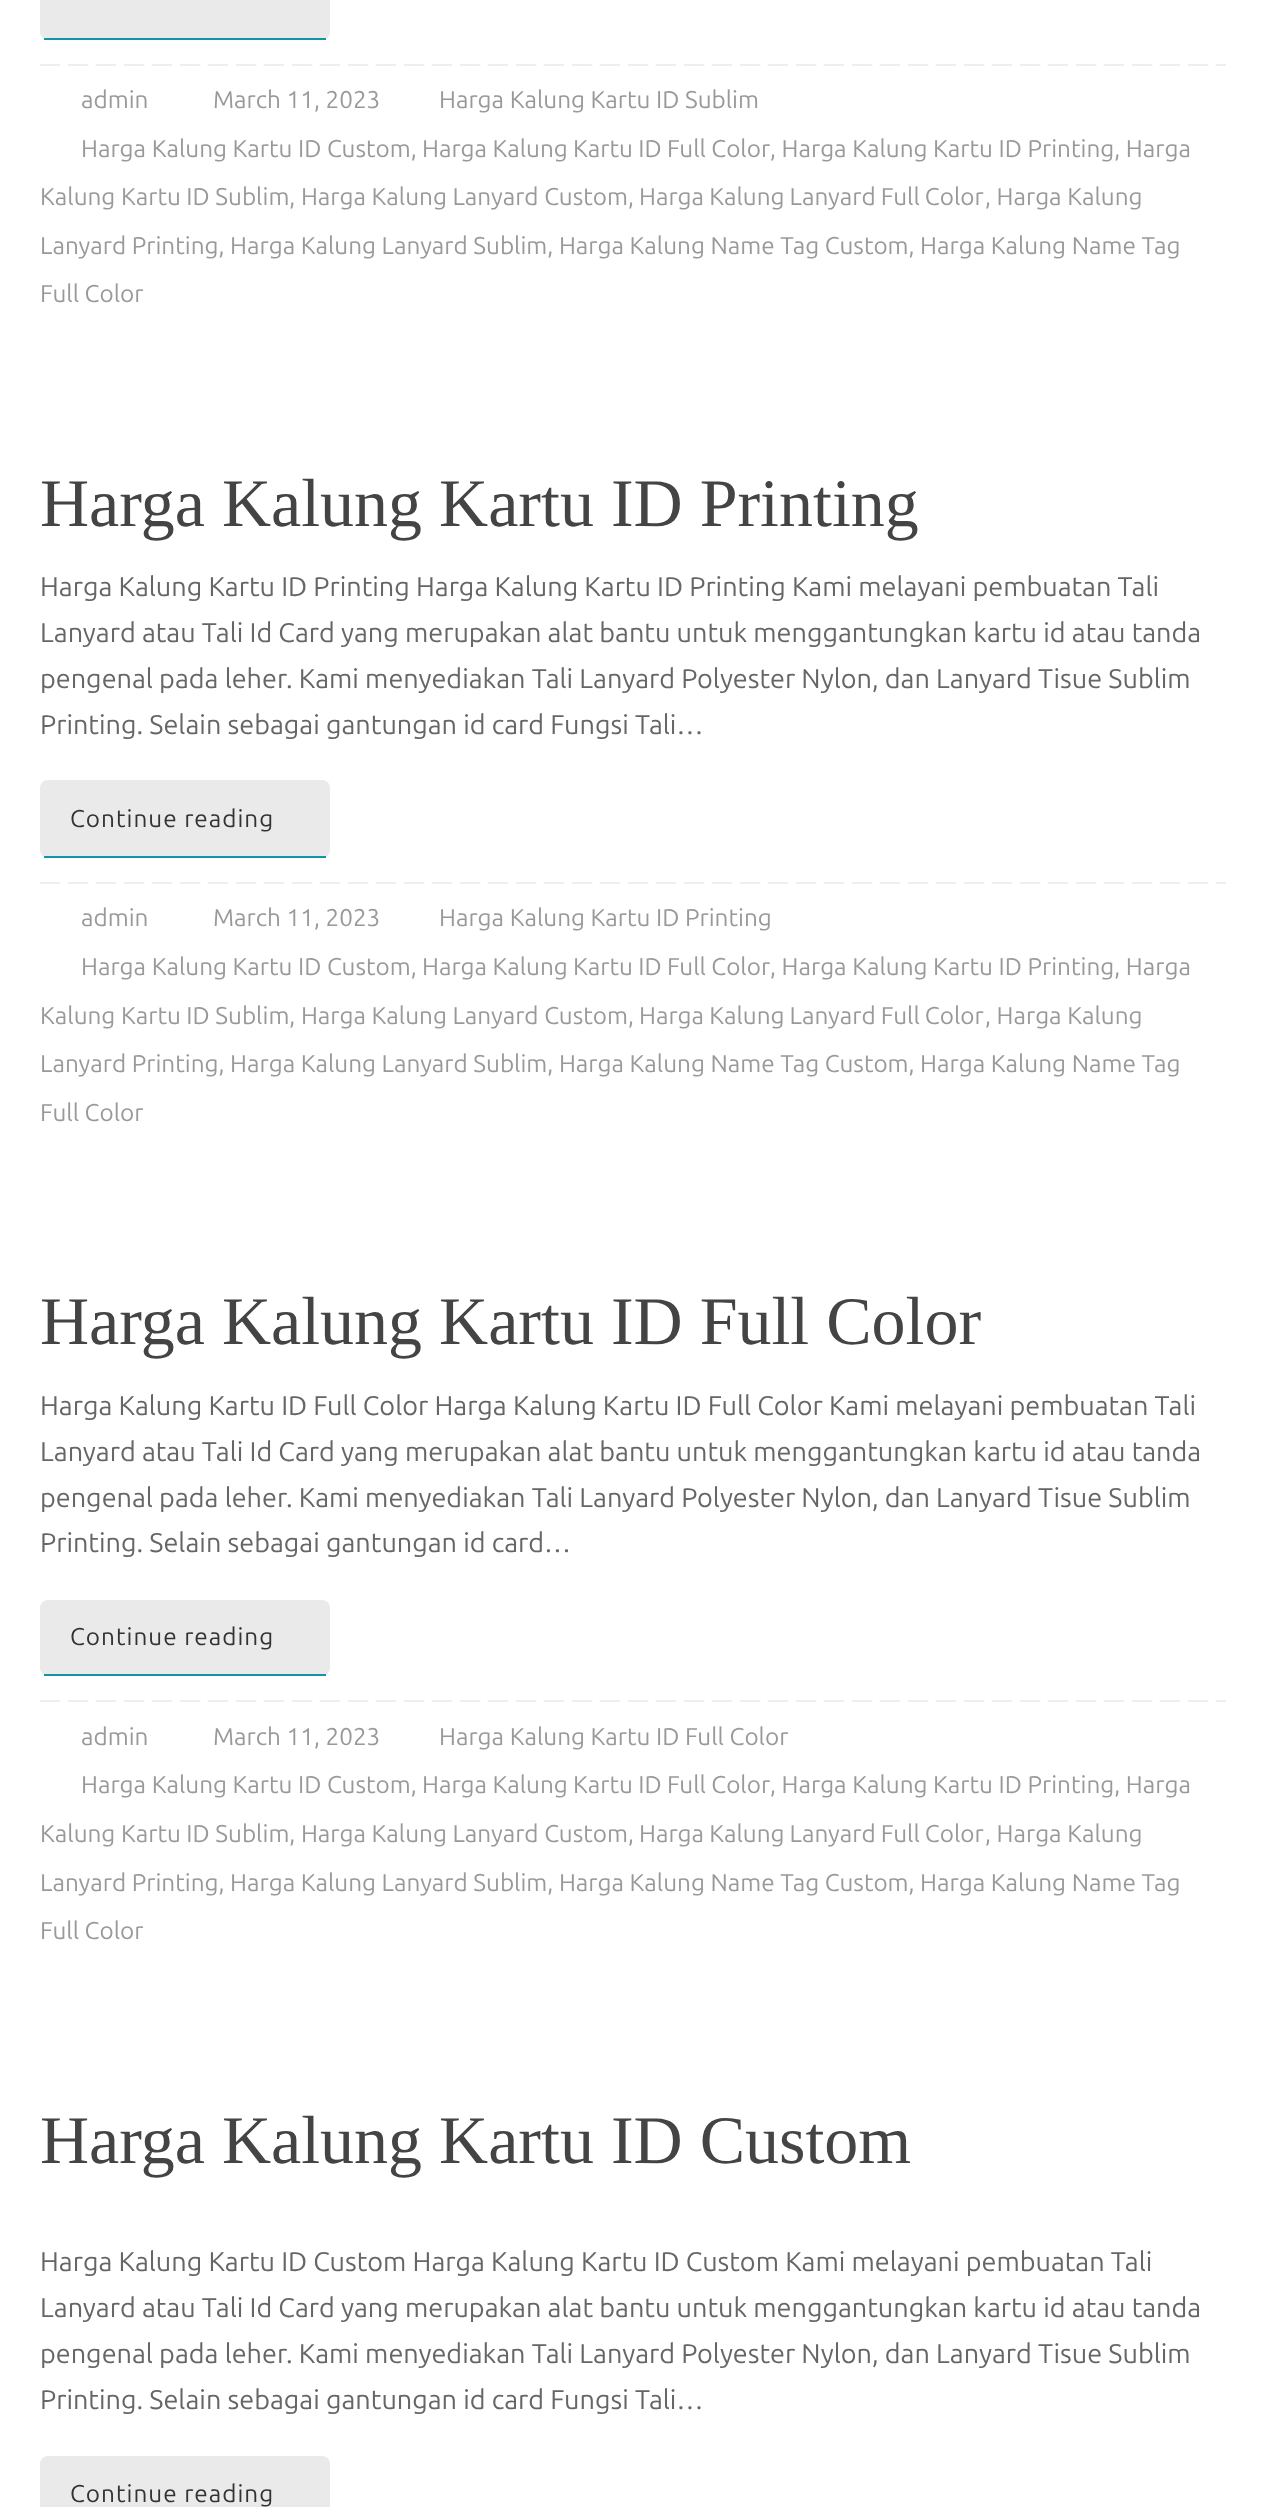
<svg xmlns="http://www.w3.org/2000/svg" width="1266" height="2507">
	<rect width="100%" height="100%" fill="#FFFFFF" />
	<rect x="40" y="-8" width="290" height="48" rx="8" fill="#EAEAEA" />
	<rect x="44" y="38" width="282" height="2" fill="#1693A5" />
	<image x="40" y="64" width="1186" height="2" href="assets/img1.png" />
	<g font-family="Ubuntu" font-size="24.3" fill="#999999">
		<text x="81" y="108">admin</text>
		<text x="213" y="108">March 11, 2023</text>
		<text x="439" y="108">Harga Kalung Kartu ID Sublim</text>
		<text x="81" y="157">Harga Kalung Kartu ID Custom,</text>
		<text x="422" y="157" word-spacing="-0.25">Harga Kalung Kartu ID Full Color</text>
		<text x="770" y="157">, Harga Kalung Kartu ID Printing, Harga</text>
		<text x="40" y="205">Kalung Kartu ID Sublim, Harga Kalung Lanyard Custom,</text>
		<text x="639" y="205" word-spacing="-0.5">Harga Kalung Lanyard Full Color</text>
		<text x="985" y="205">, Harga Kalung</text>
		<text x="40" y="254">Lanyard Printing, Harga Kalung Lanyard Sublim, Harga Kalung Name Tag Custom, Harga Kalung Name Tag</text>
		<text x="40" y="302">Full Color</text>
	</g>
	<text x="40" y="526" font-family="Liberation Serif" font-size="68" fill="#444444">Harga Kalung Kartu ID Printing</text>
	<g font-family="Ubuntu" font-size="27" fill="#666666">
		<text x="40" y="596">Harga Kalung Kartu ID Printing Harga Kalung Kartu ID Printing Kami melayani pembuatan Tali</text>
		<text x="40" y="642">Lanyard atau Tali Id Card yang merupakan alat bantu untuk menggantungkan kartu id atau tanda</text>
		<text x="40" y="688">pengenal pada leher. Kami menyediakan Tali Lanyard Polyester Nylon, dan Lanyard Tisue Sublim</text>
		<text x="40" y="734">Printing. Selain sebagai gantungan id card Fungsi Tali…</text>
	</g>
	<rect x="40" y="780" width="290" height="78" rx="8" fill="#EAEAEA" />
	<rect x="44" y="856" width="282" height="2" fill="#1693A5" />
	<text x="70" y="827" font-family="Ubuntu" font-size="24.3" letter-spacing="1" fill="#333333">Continue reading</text>
	<image x="40" y="882" width="1186" height="2" href="assets/img1.png" />
	<g font-family="Ubuntu" font-size="24.3" fill="#999999">
		<text x="81" y="926">admin</text>
		<text x="213" y="926">March 11, 2023</text>
		<text x="439" y="926">Harga Kalung Kartu ID Printing</text>
		<text x="81" y="975">Harga Kalung Kartu ID Custom,</text>
		<text x="422" y="975" word-spacing="-0.25">Harga Kalung Kartu ID Full Color</text>
		<text x="770" y="975">, Harga Kalung Kartu ID Printing, Harga</text>
		<text x="40" y="1024">Kalung Kartu ID Sublim, Harga Kalung Lanyard Custom,</text>
		<text x="639" y="1024" word-spacing="-0.5">Harga Kalung Lanyard Full Color</text>
		<text x="985" y="1024">, Harga Kalung</text>
		<text x="40" y="1072">Lanyard Printing, Harga Kalung Lanyard Sublim, Harga Kalung Name Tag Custom, Harga Kalung Name Tag</text>
		<text x="40" y="1121">Full Color</text>
	</g>
	<text x="40" y="1344" font-family="Liberation Serif" font-size="68" fill="#444444">Harga Kalung Kartu ID Full Color</text>
	<g font-family="Ubuntu" font-size="27" fill="#666666">
		<text x="40" y="1415">Harga Kalung Kartu ID Full Color Harga Kalung Kartu ID Full Color Kami melayani pembuatan Tali</text>
		<text x="40" y="1461">Lanyard atau Tali Id Card yang merupakan alat bantu untuk menggantungkan kartu id atau tanda</text>
		<text x="40" y="1507">pengenal pada leher. Kami menyediakan Tali Lanyard Polyester Nylon, dan Lanyard Tisue Sublim</text>
		<text x="40" y="1552">Printing. Selain sebagai gantungan id card…</text>
	</g>
	<rect x="40" y="1600" width="290" height="76" rx="8" fill="#EAEAEA" />
	<rect x="44" y="1674" width="282" height="2" fill="#1693A5" />
	<text x="70" y="1645" font-family="Ubuntu" font-size="24.3" letter-spacing="1" fill="#333333">Continue reading</text>
	<image x="40" y="1700" width="1186" height="2" href="assets/img1.png" />
	<g font-family="Ubuntu" font-size="24.3" fill="#999999">
		<text x="81" y="1745">admin</text>
		<text x="213" y="1745">March 11, 2023</text>
		<text x="439" y="1745">Harga Kalung Kartu ID Full Color</text>
		<text x="81" y="1793">Harga Kalung Kartu ID Custom,</text>
		<text x="422" y="1793" word-spacing="-0.25">Harga Kalung Kartu ID Full Color</text>
		<text x="770" y="1793">, Harga Kalung Kartu ID Printing, Harga</text>
		<text x="40" y="1842">Kalung Kartu ID Sublim, Harga Kalung Lanyard Custom,</text>
		<text x="639" y="1842" word-spacing="-0.5">Harga Kalung Lanyard Full Color</text>
		<text x="985" y="1842">, Harga Kalung</text>
		<text x="40" y="1891">Lanyard Printing, Harga Kalung Lanyard Sublim, Harga Kalung Name Tag Custom, Harga Kalung Name Tag</text>
		<text x="40" y="1939">Full Color</text>
	</g>
	<text x="40" y="2163" font-family="Liberation Serif" font-size="68" fill="#444444">Harga Kalung Kartu ID Custom</text>
	<g font-family="Ubuntu" font-size="27" fill="#666666">
		<text x="40" y="2271">Harga Kalung Kartu ID Custom Harga Kalung Kartu ID Custom Kami melayani pembuatan Tali</text>
		<text x="40" y="2317">Lanyard atau Tali Id Card yang merupakan alat bantu untuk menggantungkan kartu id atau tanda</text>
		<text x="40" y="2363">pengenal pada leher. Kami menyediakan Tali Lanyard Polyester Nylon, dan Lanyard Tisue Sublim</text>
		<text x="40" y="2409">Printing. Selain sebagai gantungan id card Fungsi Tali…</text>
	</g>
	<rect x="40" y="2456" width="290" height="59" rx="8" fill="#EAEAEA" />
	<text x="70" y="2502" font-family="Ubuntu" font-size="24.3" letter-spacing="1" fill="#333333">Continue reading</text>
</svg>
